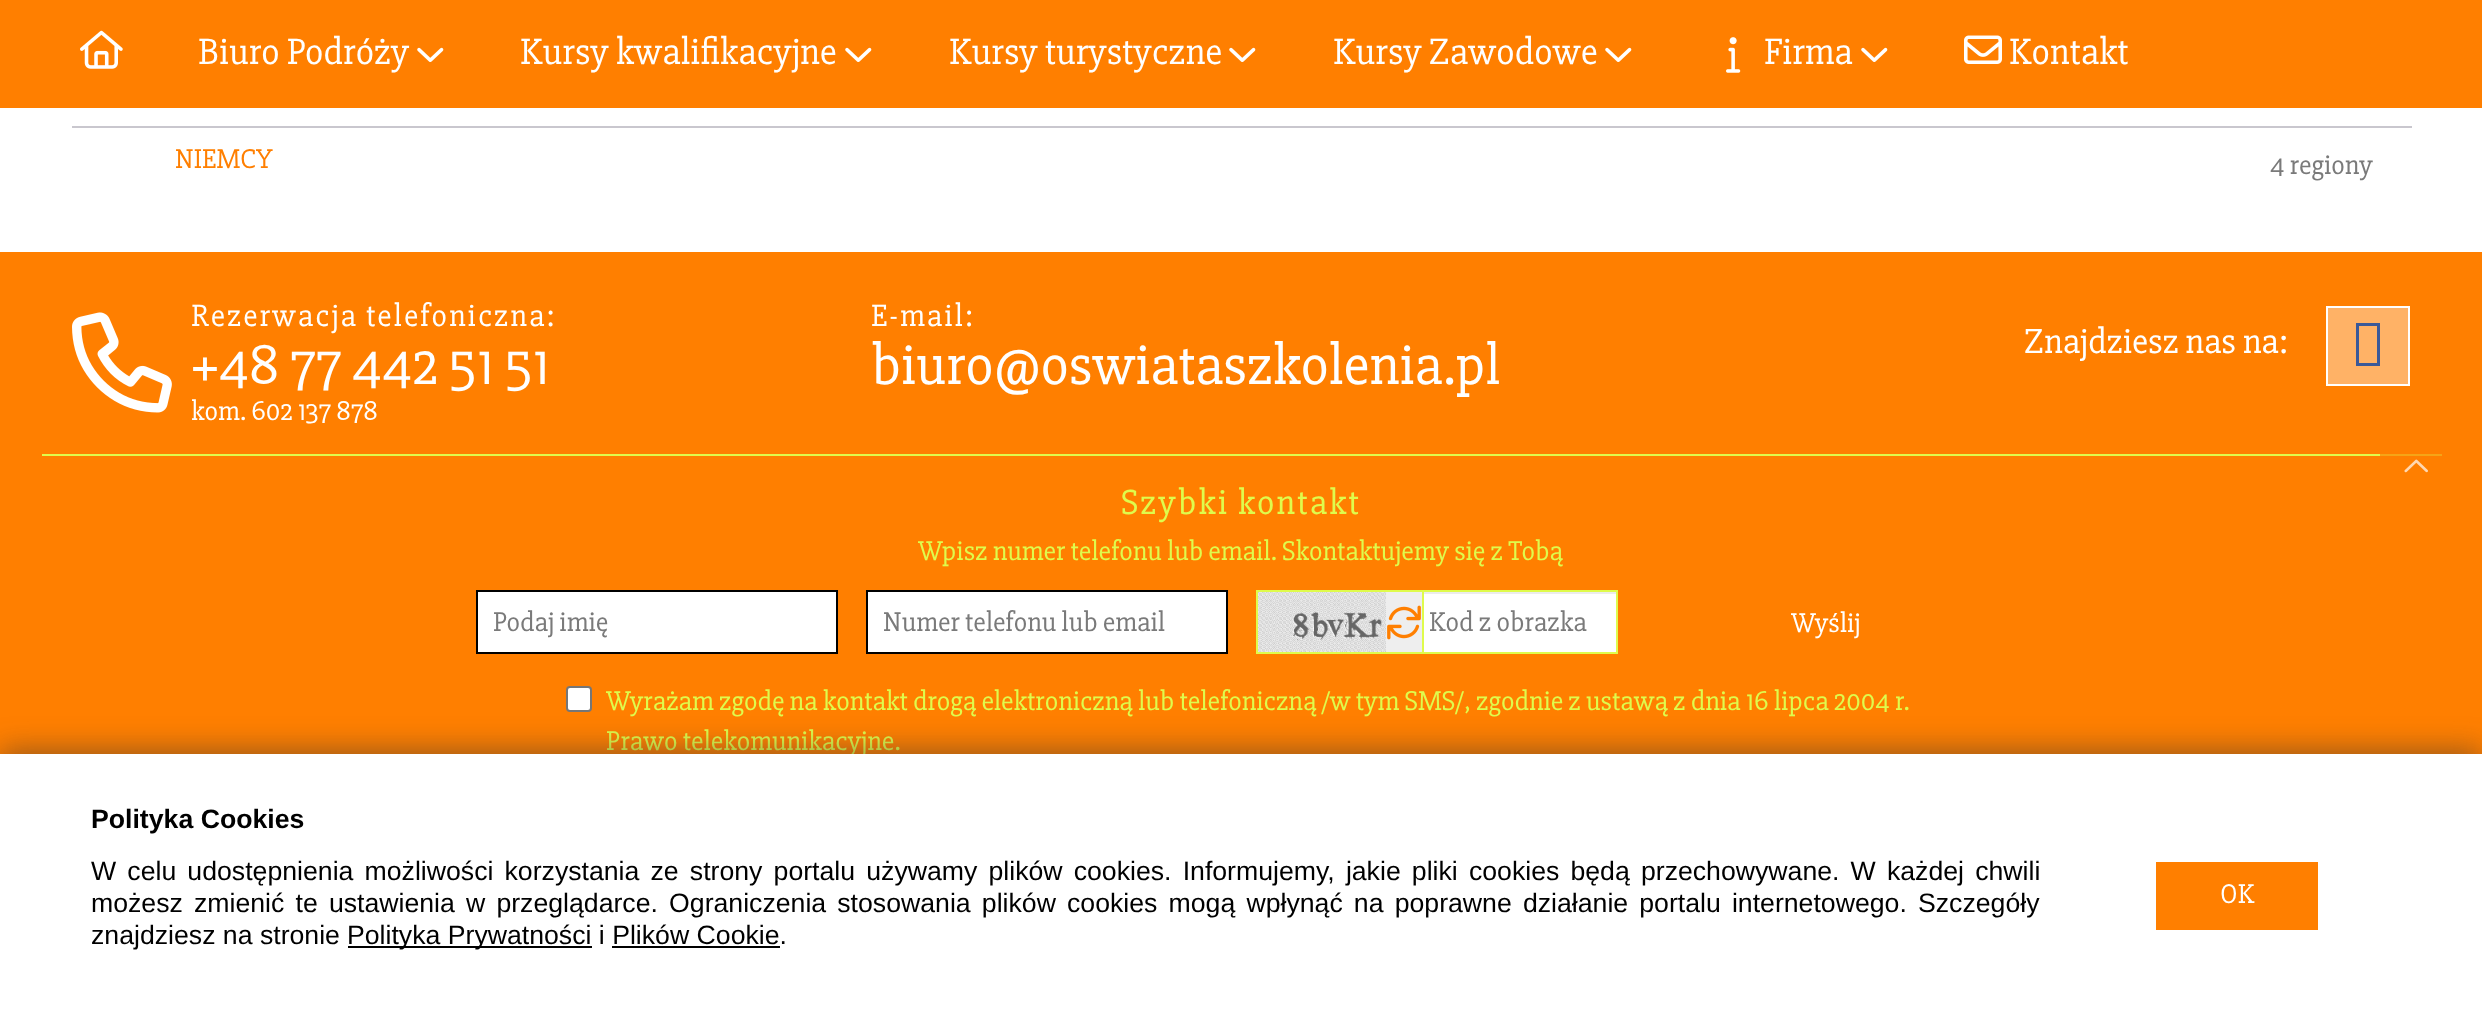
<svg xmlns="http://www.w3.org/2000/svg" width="2482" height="1017">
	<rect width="100%" height="100%" fill="#FFFFFF" />
	<rect x="0" y="0" width="2482" height="108" fill="#FF7F00" />
	<image x="80" y="30" width="43" height="39" href="assets/img1.png" />
	<text x="198" y="64" font-family="'Slabo 27px'" font-size="38" fill="#FFFFFF">Biuro Podróży</text>
	<image x="417" y="47" width="27" height="15" href="assets/img2.png" />
	<text x="520" y="64" font-family="'Slabo 27px'" font-size="38" fill="#FFFFFF">Kursy kwalifikacyjne</text>
	<image x="845" y="47" width="27" height="15" href="assets/img2.png" />
	<text x="949" y="64" font-family="'Slabo 27px'" font-size="38" fill="#FFFFFF">Kursy turystyczne</text>
	<image x="1229" y="47" width="27" height="15" href="assets/img2.png" />
	<text x="1333" y="64" font-family="'Slabo 27px'" font-size="38" fill="#FFFFFF">Kursy Zawodowe</text>
	<image x="1605" y="47" width="27" height="15" href="assets/img2.png" />
	<image x="1726" y="37" width="15" height="36" href="assets/img3.png" />
	<text x="1764" y="64" font-family="'Slabo 27px'" font-size="38" fill="#FFFFFF">Firma</text>
	<image x="1861" y="47" width="27" height="15" href="assets/img2.png" />
	<image x="1964" y="35" width="38" height="29" href="assets/img4.png" />
	<text x="2009" y="64" font-family="'Slabo 27px'" font-size="38" fill="#FFFFFF">Kontakt</text>
	<rect x="72" y="126" width="2340" height="2" fill="#C9C7CE" />
	<text x="175" y="168" font-family="'Slabo 27px'" font-size="28" fill="#FF7F00">NIEMCY</text>
	<text x="2270" y="174" font-family="'Slabo 27px'" font-size="28" fill="#7A7A7A">4 regiony</text>
	<rect x="0" y="252" width="2482" height="502" fill="#FF7F00" />
	<rect x="42" y="454" width="2338" height="2" fill="#DFFB4C" />
	<rect x="2380" y="454" width="62" height="2" fill="#F5A417" />
	<image x="72" y="312" width="100" height="101" href="assets/img5.png" />
	<text x="191" y="326" font-family="'Slabo 27px'" font-size="32" letter-spacing="2" fill="#FFFFFF">Rezerwacja telefoniczna:</text>
	<text x="191" y="384" font-family="'Slabo 27px'" font-size="58" fill="#FFFFFF">+48 77 442 51 51</text>
	<text x="191" y="420" font-family="'Slabo 27px'" font-size="28" fill="#FFFFFF">kom. 602 137 878</text>
	<text x="871" y="326" font-family="'Slabo 27px'" font-size="32" letter-spacing="2" fill="#FFFFFF">E-mail:</text>
	<text x="871" y="384" font-family="'Slabo 27px'" font-size="58" fill="#FFFFFF">biuro@oswiataszkolenia.pl</text>
	<text x="2024" y="353" font-family="'Slabo 27px'" font-size="36" fill="#FFFFFF">Znajdziesz nas na:</text>
	<rect x="2327" y="307" width="82" height="78" fill="#FFB266" stroke="#FFFFFF" stroke-width="2" />
	<path d="M2356 366V323H2380V366ZM2359 363H2377V326H2359Z" fill="#3B5998" />
	<text x="1121" y="514" font-family="'Slabo 27px'" font-size="36" letter-spacing="2" fill="#DFFB4C">Szybki kontakt</text>
	<text x="918" y="560" font-family="'Slabo 27px'" font-size="28" fill="#DFFB4C">Wpisz numer telefonu lub email. Skontaktujemy się z Tobą</text>
	<rect x="477" y="591" width="360" height="62" fill="#FFFFFF" stroke="#000000" stroke-width="2" />
	<text x="493" y="631" font-family="'Slabo 27px'" font-size="28" fill="#7A7A7A">Podaj imię</text>
	<rect x="867" y="591" width="360" height="62" fill="#FFFFFF" stroke="#000000" stroke-width="2" />
	<text x="883" y="631" font-family="'Slabo 27px'" font-size="28" fill="#7A7A7A">Numer telefonu lub email</text>
	<rect x="1386" y="592" width="36" height="60" fill="#EEEEEE" />
	<rect x="1256" y="590" width="166" height="2" fill="#DFFB4C" />
	<rect x="1256" y="652" width="166" height="2" fill="#DFFB4C" />
	<rect x="1256" y="590" width="2" height="64" fill="#DFFB4C" />
	<image x="1258" y="592" width="128" height="60" href="assets/img6.png" />
	<image x="1387" y="605" width="34" height="35" href="assets/img7.png" />
	<rect x="1424" y="594" width="192" height="58" fill="#FFFFFF" />
	<rect x="1424" y="592" width="192" height="2" fill="#ECECEC" />
	<rect x="1423" y="591" width="194" height="62" fill="none" stroke="#DFFB4C" stroke-width="2" />
	<text x="1429" y="631" font-family="'Slabo 27px'" font-size="28" fill="#7A7A7A">Kod z obrazka</text>
	<text x="1791" y="632" font-family="'Slabo 27px'" font-size="28" fill="#FFFFFF">Wyślij</text>
	<rect x="567" y="687" width="24" height="24" rx="3" fill="#FFFFFF" stroke="#767676" stroke-width="2" />
	<g font-family="'Slabo 27px'" font-size="28" fill="#DFFB4C">
		<text x="606" y="710">Wyrażam zgodę na kontakt drogą elektroniczną lub telefoniczną /w tym SMS/, zgodnie z ustawą z dnia 16 lipca 2004 r.</text>
		<text x="606" y="750">Prawo telekomunikacyjne.</text>
	</g>
	<image x="2404" y="459" width="24" height="14" href="assets/img8.png" />
	<rect x="0" y="750" width="2482" height="264" fill="#323232" fill-opacity="0.5" filter="blur(15px)" />
	<rect x="0" y="754" width="2482" height="263" fill="#FFFFFF" />
	<text x="91" y="828" font-family="Liberation Sans" font-size="26.67" font-weight="700" fill="#000000">Polityka Cookies</text>
	<g font-family="Liberation Sans" font-size="26.67" fill="#000000">
		<text x="91" y="880" word-spacing="3.75">W celu udostępnienia możliwości korzystania ze strony portalu używamy plików cookies. Informujemy, jakie pliki cookies będą przechowywane. W każdej chwili</text>
		<text x="91" y="912" word-spacing="3.75">możesz zmienić te ustawienia w przeglądarce. Ograniczenia stosowania plików cookies mogą wpłynąć na poprawne działanie portalu internetowego. Szczegóły</text>
		<text x="91" y="944">znajdziesz na stronie</text>
	</g>
	<rect x="348" y="946" width="244" height="2" fill="#000000" />
	<text x="347" y="944" font-family="Liberation Sans" font-size="26.67" fill="#000000">Polityka Prywatności i Plików Cookie.</text>
	<rect x="612" y="946" width="168" height="2" fill="#000000" />
	<rect x="2156" y="862" width="162" height="68" fill="#FF7F00" />
	<text x="2220" y="903" font-family="'Slabo 27px'" font-size="28" fill="#FFFFFF">OK</text>
</svg>
